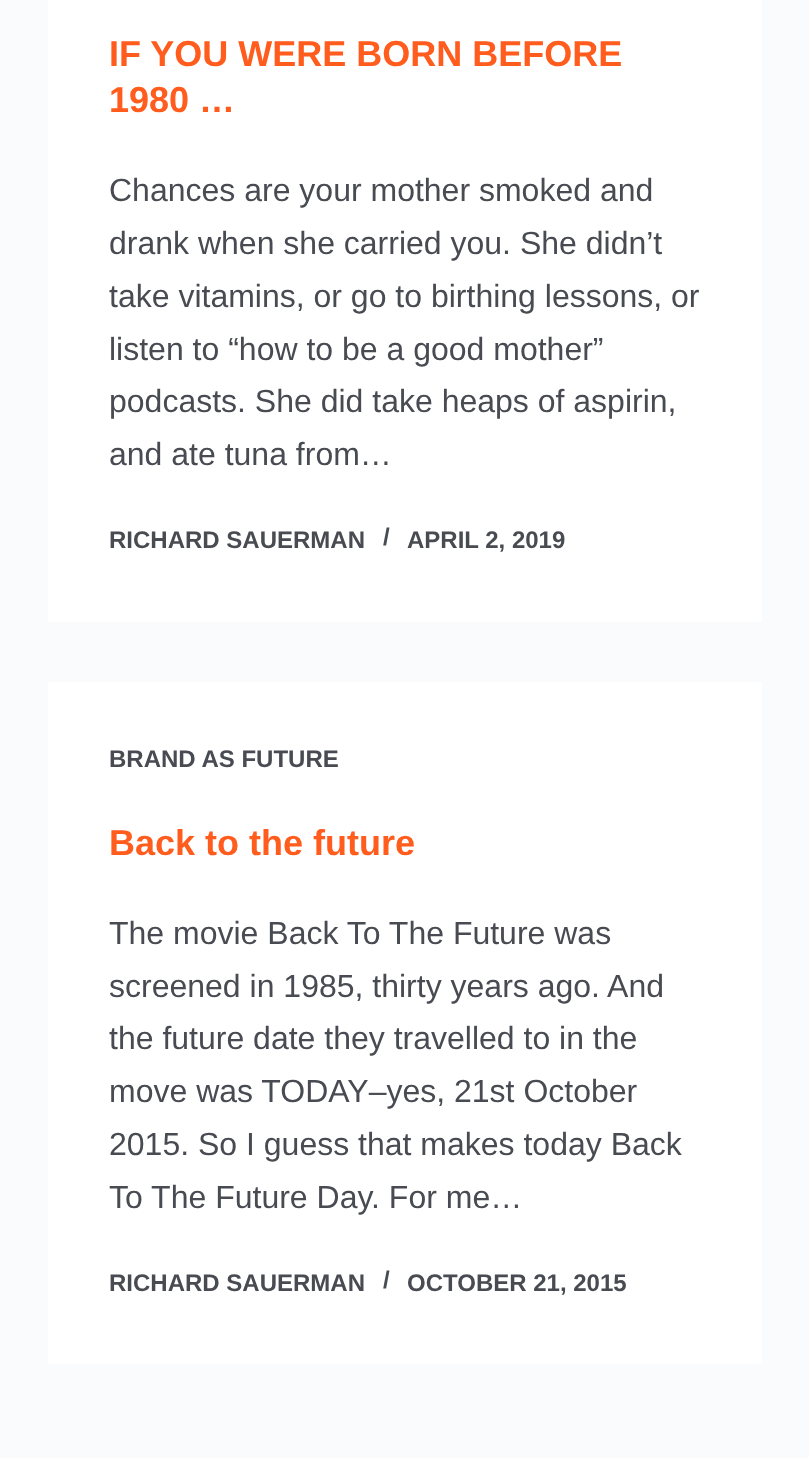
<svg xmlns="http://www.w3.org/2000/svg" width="809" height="1458">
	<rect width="100%" height="100%" fill="#FAFBFC" />
	<rect x="48" y="0" width="714" height="622" fill="#FFFFFF" />
	<g font-family="Liberation Sans" font-size="36" font-weight="700" fill="#FF5C1D">
		<text x="109" y="66">IF YOU WERE BORN BEFORE</text>
		<text x="109" y="112">1980 …</text>
	</g>
	<g font-family="Liberation Sans" font-size="32" fill="#494B52">
		<text x="109" y="201">Chances are your mother smoked and</text>
		<text x="109" y="254">drank when she carried you. She didn’t</text>
		<text x="109" y="307">take vitamins, or go to birthing lessons, or</text>
		<text x="109" y="360">listen to “how to be a good mother”</text>
		<text x="109" y="412">podcasts. She did take heaps of aspirin,</text>
		<text x="109" y="465">and ate tuna from…</text>
	</g>
	<g font-family="Liberation Sans" font-size="24" font-weight="700" fill="#494B52">
		<text x="109" y="548">RICHARD SAUERMAN</text>
		<text x="383" y="545">/</text>
		<text x="407" y="548">APRIL 2, 2019</text>
	</g>
	<rect x="48" y="682" width="714" height="682" fill="#FFFFFF" />
	<text x="109" y="767" font-family="Liberation Sans" font-size="24" font-weight="700" fill="#494B52">BRAND AS FUTURE</text>
	<text x="109" y="855" font-family="Liberation Sans" font-size="36" font-weight="700" fill="#FF5C1D">Back to the future</text>
	<g font-family="Liberation Sans" font-size="32" fill="#494B52">
		<text x="109" y="944">The movie Back To The Future was</text>
		<text x="109" y="997">screened in 1985, thirty years ago. And</text>
		<text x="109" y="1049">the future date they travelled to in the</text>
		<text x="109" y="1102">move was TODAY–yes, 21st October</text>
		<text x="109" y="1155">2015. So I guess that makes today Back</text>
		<text x="109" y="1208">To The Future Day. For me…</text>
	</g>
	<g font-family="Liberation Sans" font-size="24" font-weight="700" fill="#494B52">
		<text x="109" y="1291">RICHARD SAUERMAN</text>
		<text x="383" y="1288">/</text>
		<text x="407" y="1291">OCTOBER 21, 2015</text>
	</g>
</svg>
